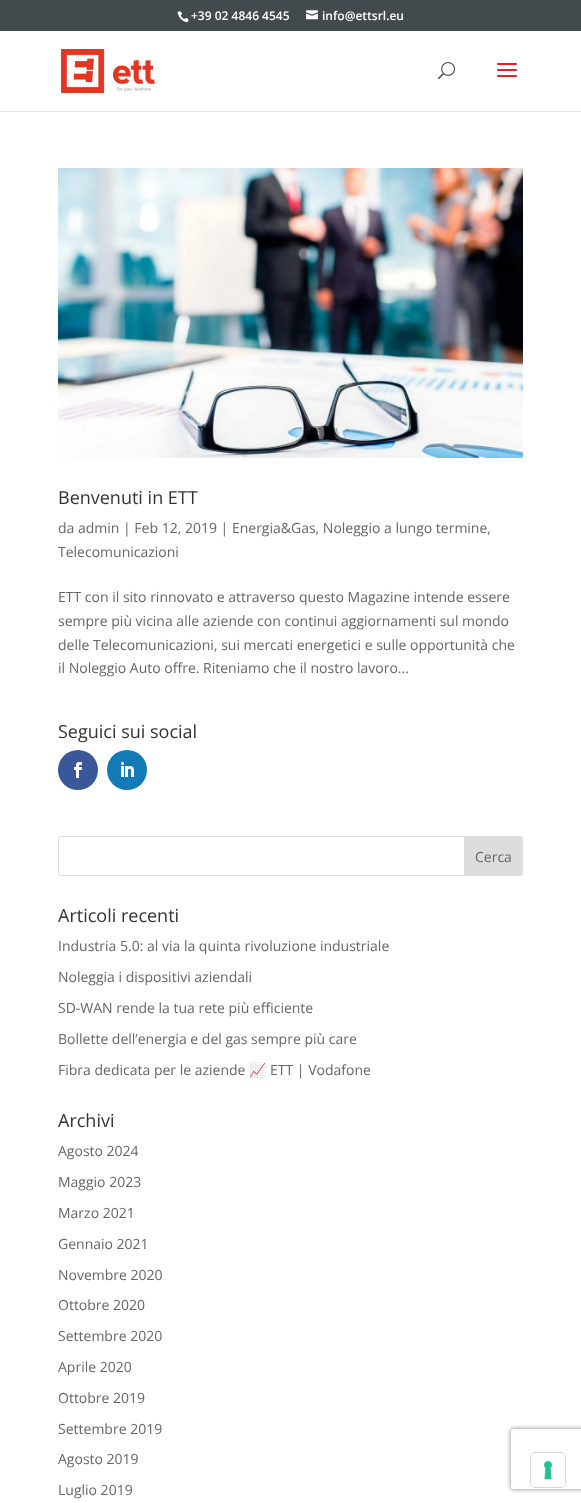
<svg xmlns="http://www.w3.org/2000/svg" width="581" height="1503">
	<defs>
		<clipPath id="clip1"><path d="M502 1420H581V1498H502ZM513 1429H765C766 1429 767 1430 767 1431V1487C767 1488 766 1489 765 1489H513C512 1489 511 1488 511 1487V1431C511 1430 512 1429 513 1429Z" clip-rule="evenodd" /></clipPath>
	</defs>
	<rect width="100%" height="100%" fill="#FFFFFF" />
	<rect x="0" y="0" width="581" height="31" fill="#434A4E" />
	<image x="177" y="11" width="12" height="12" href="assets/img1.png" />
	<text x="191" y="20" font-family="Open Sans" font-size="12" font-weight="600" fill="#FFFFFF">+39 02 4846 4545</text>
	<image x="306" y="10" width="12" height="10" href="assets/img2.png" />
	<text x="322" y="20" font-family="Open Sans" font-size="12" font-weight="600" fill="#FFFFFF">info@ettsrl.eu</text>
	<rect x="0" y="111" width="581" height="1" fill="#E6E6E6" />
	<image x="61" y="49" width="94" height="44" href="assets/img3.png" />
	<image x="438" y="62" width="17" height="18" href="assets/img4.png" />
	<image x="497" y="63" width="20" height="14" href="assets/img5.png" />
	<image x="58" y="168" width="465" height="290" href="assets/img6.png" />
	<text x="58" y="504" font-family="Open Sans" font-size="18" fill="#333333">Benvenuti in ETT</text>
	<g font-family="Open Sans" font-size="14" fill="#666666">
		<text x="58" y="533">da admin | Feb 12, 2019 | Energia&amp;Gas, Noleggio a lungo termine,</text>
		<text x="58" y="557">Telecomunicazioni</text>
		<text x="58" y="602">ETT con il sito rinnovato e attraverso questo Magazine intende essere</text>
		<text x="58" y="626">sempre più vicina alle aziende con continui aggiornamenti sul mondo</text>
		<text x="58" y="650">delle Telecomunicazioni, sui mercati energetici e sulle opportunità che</text>
		<text x="58" y="673">il Noleggio Auto offre. Riteniamo che il nostro lavoro...</text>
	</g>
	<text x="58" y="738" font-family="Open Sans" font-size="18" fill="#333333">Seguici sui social</text>
	<circle cx="78" cy="770" r="20" fill="#3A579A" />
	<image x="74" y="762" width="8" height="16" href="assets/img7.png" />
	<circle cx="127" cy="770" r="20" fill="#127BB6" />
	<image x="121" y="762" width="13" height="15" href="assets/img8.png" />
	<rect x="58.5" y="836.5" width="464" height="39" rx="2.5" fill="none" stroke="#DDDDDD" />
	<path d="M464.5 836.5H520C521.5 836.5 522.5 837.5 522.5 839V873C522.5 874.5 521.5 875.5 520 875.5H464.5Z" fill="#DDDDDD" stroke="#DDDDDD" />
	<text x="475" y="862" font-family="Open Sans" font-size="14" fill="#666666">Cerca</text>
	<text x="58" y="922" font-family="Open Sans" font-size="18" fill="#333333">Articoli recenti</text>
	<g font-family="Open Sans" font-size="14" fill="#666666">
		<text x="58" y="951">Industria 5.0: al via la quinta rivoluzione industriale</text>
		<text x="58" y="982">Noleggia i dispositivi aziendali</text>
		<text x="58" y="1013">SD-WAN rende la tua rete più efficiente</text>
		<text x="58" y="1044">Bollette dell’energia e del gas sempre più care</text>
		<text x="58" y="1075">Fibra dedicata per le aziende</text>
	</g>
	<text x="249" y="1075" font-family="Noto Color Emoji" font-size="14" fill="#666666">📈</text>
	<text x="270" y="1075" font-family="Open Sans" font-size="14" fill="#666666">ETT | Vodafone</text>
	<text x="58" y="1127" font-family="Open Sans" font-size="18" fill="#333333">Archivi</text>
	<g font-family="Open Sans" font-size="14" fill="#666666">
		<text x="58" y="1156">Agosto 2024</text>
		<text x="58" y="1187">Maggio 2023</text>
		<text x="58" y="1218">Marzo 2021</text>
		<text x="58" y="1249">Gennaio 2021</text>
		<text x="58" y="1280">Novembre 2020</text>
		<text x="58" y="1310">Ottobre 2020</text>
		<text x="58" y="1341">Settembre 2020</text>
		<text x="58" y="1372">Aprile 2020</text>
		<text x="58" y="1403">Ottobre 2019</text>
		<text x="58" y="1434">Settembre 2019</text>
		<text x="58" y="1464">Agosto 2019</text>
		<text x="58" y="1495">Luglio 2019</text>
	</g>
	<g clip-path="url(#clip1)">
		<rect x="511" y="1429" width="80" height="60" rx="2" fill="#808080" filter="blur(2.5px)" />
	</g>
	<rect x="530.5" y="1452.5" width="35" height="35" rx="4.5" fill="none" stroke="#D9D9D9" />
	<rect x="531" y="1453" width="34" height="34" rx="4" fill="#FFFFFF" />
	<image x="544" y="1461" width="8" height="18" href="assets/img9.png" />
</svg>
